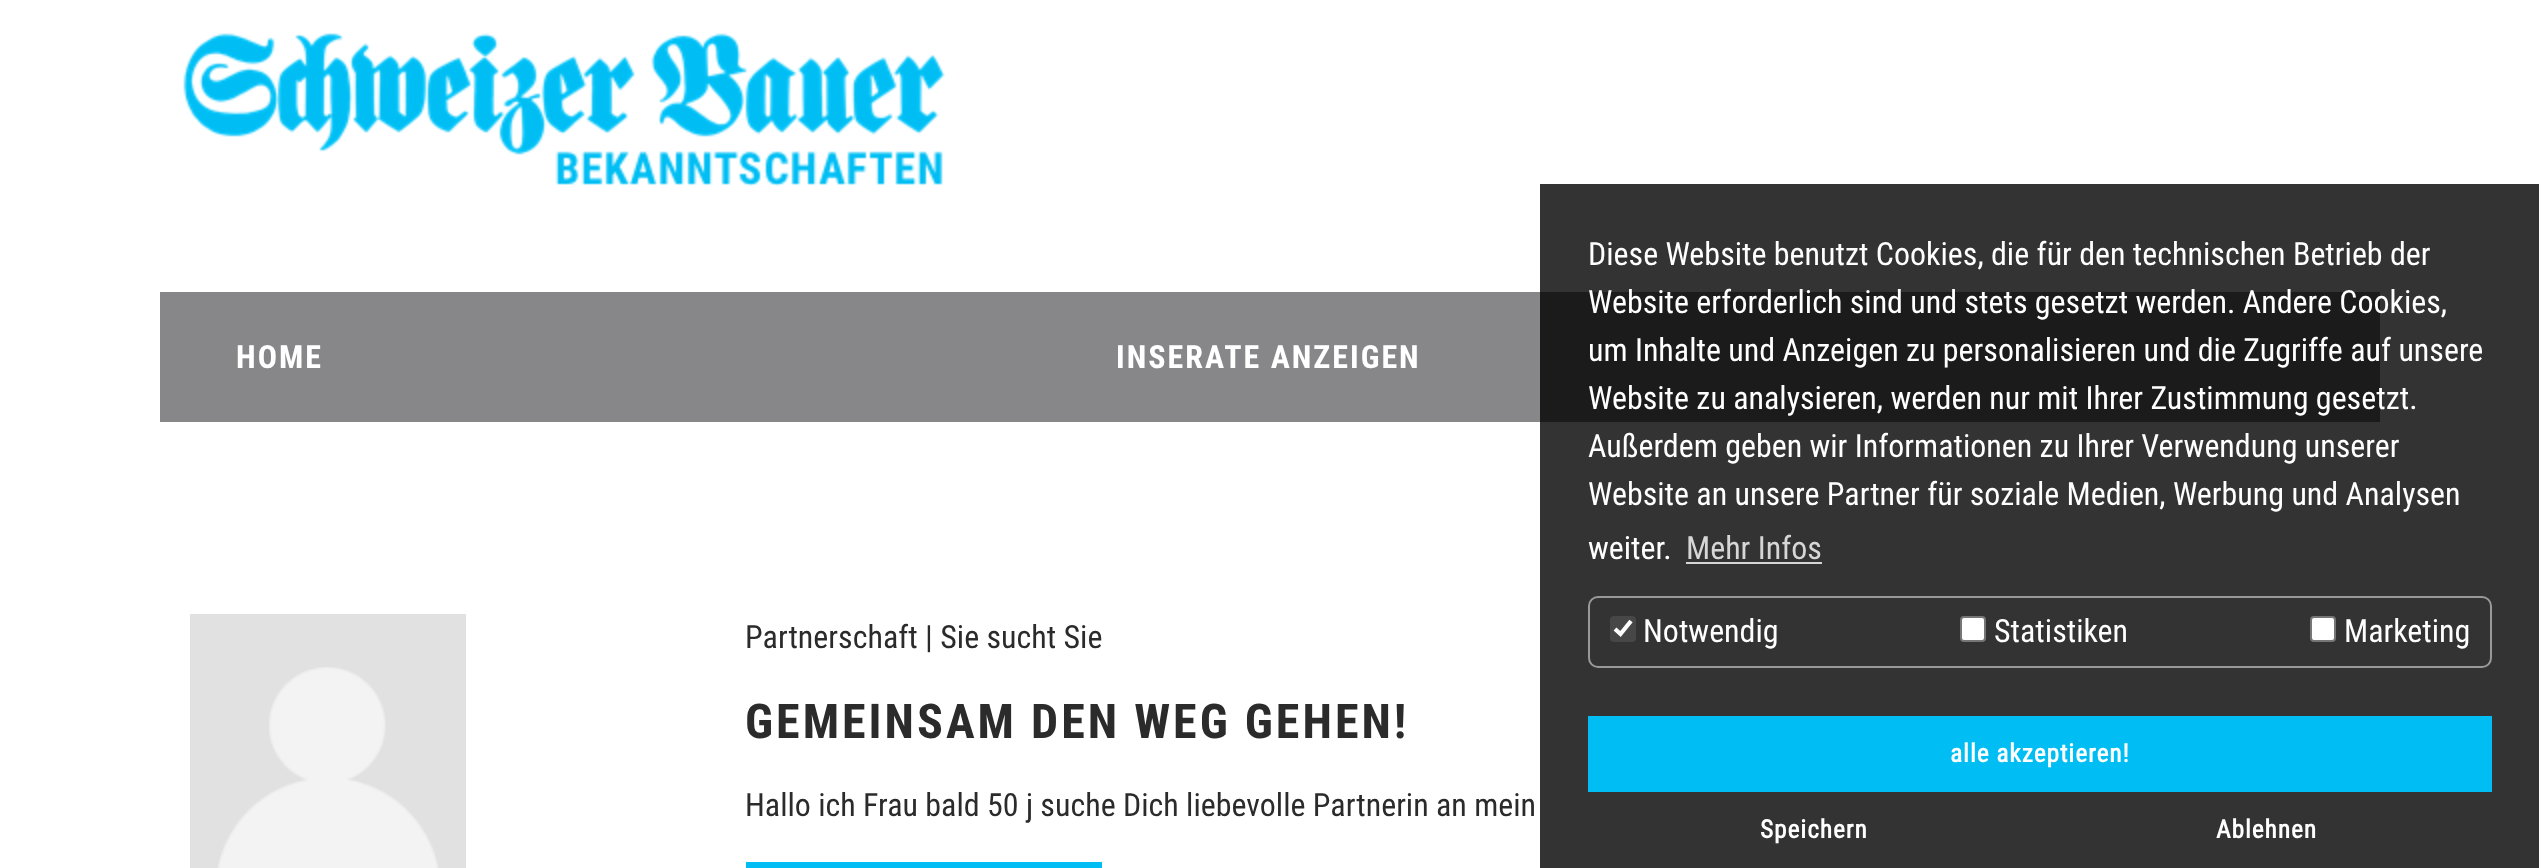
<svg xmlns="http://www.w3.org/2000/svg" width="2539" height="868">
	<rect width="100%" height="100%" fill="#FFFFFF" />
	<image x="183" y="33" width="762" height="154" href="assets/img1.png" />
	<rect x="160" y="292" width="2220" height="130" fill="#878789" />
	<g font-family="Roboto Condensed" font-size="32" font-weight="700" letter-spacing="2" fill="#FFFFFF">
		<text x="236" y="368">HOME</text>
		<text x="1116" y="368">INSERATE ANZEIGEN</text>
	</g>
	<rect x="1540" y="184" width="999" height="684" fill="#000000" fill-opacity="0.8" />
	<g font-family="Roboto Condensed" font-size="32" fill="#FFFFFF">
		<text x="1588" y="265">Diese Website benutzt Cookies, die für den technischen Betrieb der</text>
		<text x="1588" y="313">Website erforderlich sind und stets gesetzt werden. Andere Cookies,</text>
		<text x="1588" y="361">um Inhalte und Anzeigen zu personalisieren und die Zugriffe auf unsere</text>
		<text x="1588" y="409">Website zu analysieren, werden nur mit Ihrer Zustimmung gesetzt.</text>
		<text x="1588" y="457">Außerdem geben wir Informationen zu Ihrer Verwendung unserer</text>
		<text x="1588" y="505">Website an unsere Partner für soziale Medien, Werbung und Analysen</text>
		<text x="1588" y="559">weiter.</text>
	</g>
	<text x="1686" y="559" font-family="Roboto Condensed" font-size="32" fill="#D6D6D6">Mehr Infos</text>
	<rect x="1686" y="562" width="136" height="2" fill="#D6D6D6" />
	<rect x="1589" y="597" width="902" height="70" rx="9" fill="none" stroke="#999999" stroke-width="2" />
	<rect x="1610" y="616" width="26" height="26" rx="4" fill="#474747" />
	<path d="M1615 629L1620.5 634L1631 621" fill="none" stroke="#FFFFFF" stroke-width="4.2" />
	<text x="1643" y="642" font-family="Roboto Condensed" font-size="32" fill="#FFFFFF">Notwendig</text>
	<rect x="1961" y="617" width="24" height="24" rx="3" fill="#FFFFFF" stroke="#767676" stroke-width="2" />
	<text x="1994" y="642" font-family="Roboto Condensed" font-size="32" fill="#FFFFFF">Statistiken</text>
	<rect x="2311" y="617" width="24" height="24" rx="3" fill="#FFFFFF" stroke="#767676" stroke-width="2" />
	<text x="2344" y="642" font-family="Roboto Condensed" font-size="32" fill="#FFFFFF">Marketing</text>
	<rect x="1588" y="716" width="904" height="76" fill="#00BEF3" />
	<g font-family="'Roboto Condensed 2'" font-size="25.25" font-weight="700" letter-spacing="1" fill="#FFFFFF">
		<text x="1950" y="762">alle akzeptieren!</text>
		<text x="1760" y="838">Speichern</text>
		<text x="2216" y="838">Ablehnen</text>
	</g>
	<image x="190" y="614" width="276" height="254" href="assets/img2.png" />
	<text x="745" y="648" font-family="Roboto Condensed" font-size="32" fill="#2B2B2B">Partnerschaft | Sie sucht Sie</text>
	<text x="745" y="738" font-family="Roboto Condensed" font-size="48" font-weight="700" letter-spacing="3" fill="#2B2B2B">GEMEINSAM DEN WEG GEHEN!</text>
	<text x="745" y="816" font-family="Roboto Condensed" font-size="32" fill="#2B2B2B">Hallo ich Frau bald 50 j suche Dich liebevolle Partnerin an mein</text>
	<rect x="746" y="862" width="356" height="6" fill="#00BEF3" />
</svg>
